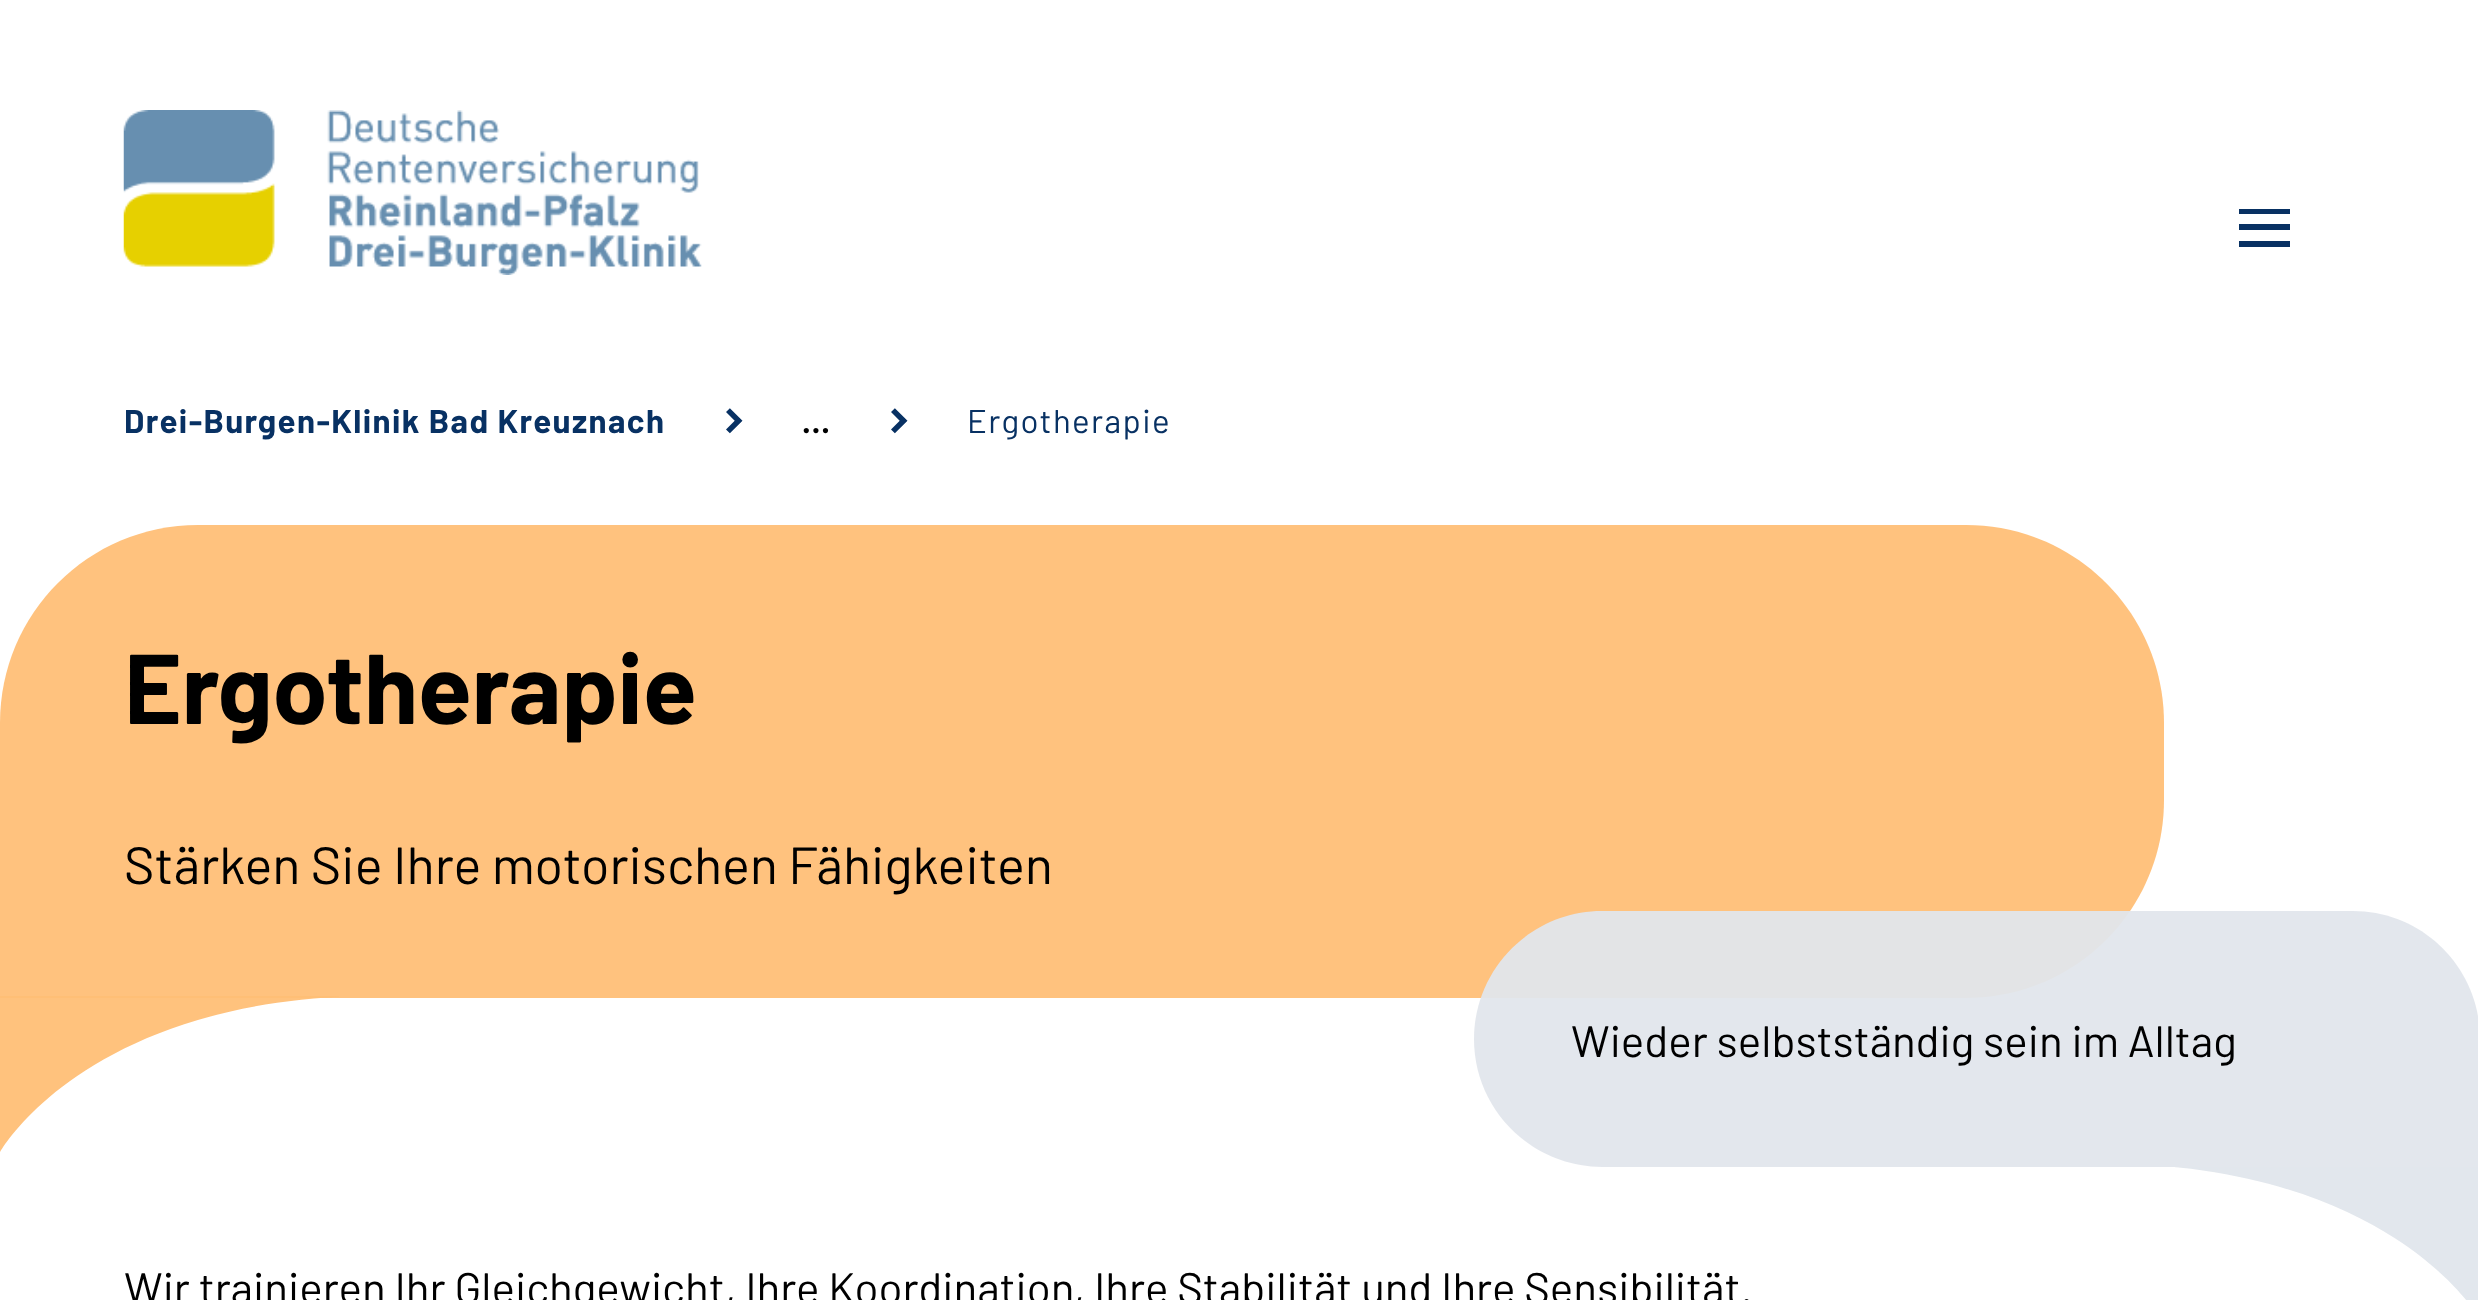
<svg xmlns="http://www.w3.org/2000/svg" width="2478" height="1300">
	<defs>
		<clipPath id="clip1"><rect x="2239" y="209" width="52" height="39" /></clipPath>
	</defs>
	<rect width="100%" height="100%" fill="#FFFFFF" />
	<image x="123" y="110" width="579" height="165" href="assets/img1.png" />
	<g clip-path="url(#clip1)">
		<path d="M2239 247V241H2290V247ZM2239 230V224H2290V230ZM2239 214V208H2290V214Z" fill="#083163" />
	</g>
	<text x="124" y="433" font-family="Barlow" font-size="33" font-weight="700" letter-spacing="1.4" fill="#083163">Drei-Burgen-Klinik Bad Kreuznach</text>
	<image x="726" y="408" width="17" height="26" href="assets/img2.png" />
	<text x="802" y="433" font-family="Barlow" font-size="33" font-weight="700" fill="#000000">…</text>
	<image x="891" y="408" width="17" height="26" href="assets/img2.png" />
	<text x="967" y="433" font-family="Barlow" font-size="33" letter-spacing="1.4" fill="#083163">Ergotherapie</text>
	<path d="M198 525H1966C2075.5 525 2164 613.5 2164 723V800C2164 909.5 2075.5 998 1966 998H0V723C0 613.5 88.5 525 198 525Z" fill="#FFC27E" />
	<text x="124" y="724" font-family="Barlow" font-size="99" font-weight="700" fill="#000000">Ergotherapie</text>
	<text x="124" y="884" font-family="Barlow" font-size="52.25" fill="#000000">Stärken Sie Ihre motorischen Fähigkeiten</text>
	<image x="0" y="996" width="339" height="156" href="assets/img3.png" />
	<path d="M2353 911H1602C1532 911 1474 968 1474 1039C1474 1110 1532 1167 1602 1167H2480V1039C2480 968 2423 911 2353 911Z" fill="#E1E6EC" fill-opacity="0.95" />
	<text x="1571" y="1057" font-family="Barlow" font-size="44" fill="#000000">Wieder selbstständig sein im Alltag</text>
	<image x="2175" y="1167" width="303" height="133" href="assets/img4.png" />
	<text x="124" y="1304" font-family="Barlow" font-size="44" fill="#000000">Wir trainieren Ihr Gleichgewicht, Ihre Koordination, Ihre Stabilität und Ihre Sensibilität.</text>
</svg>
